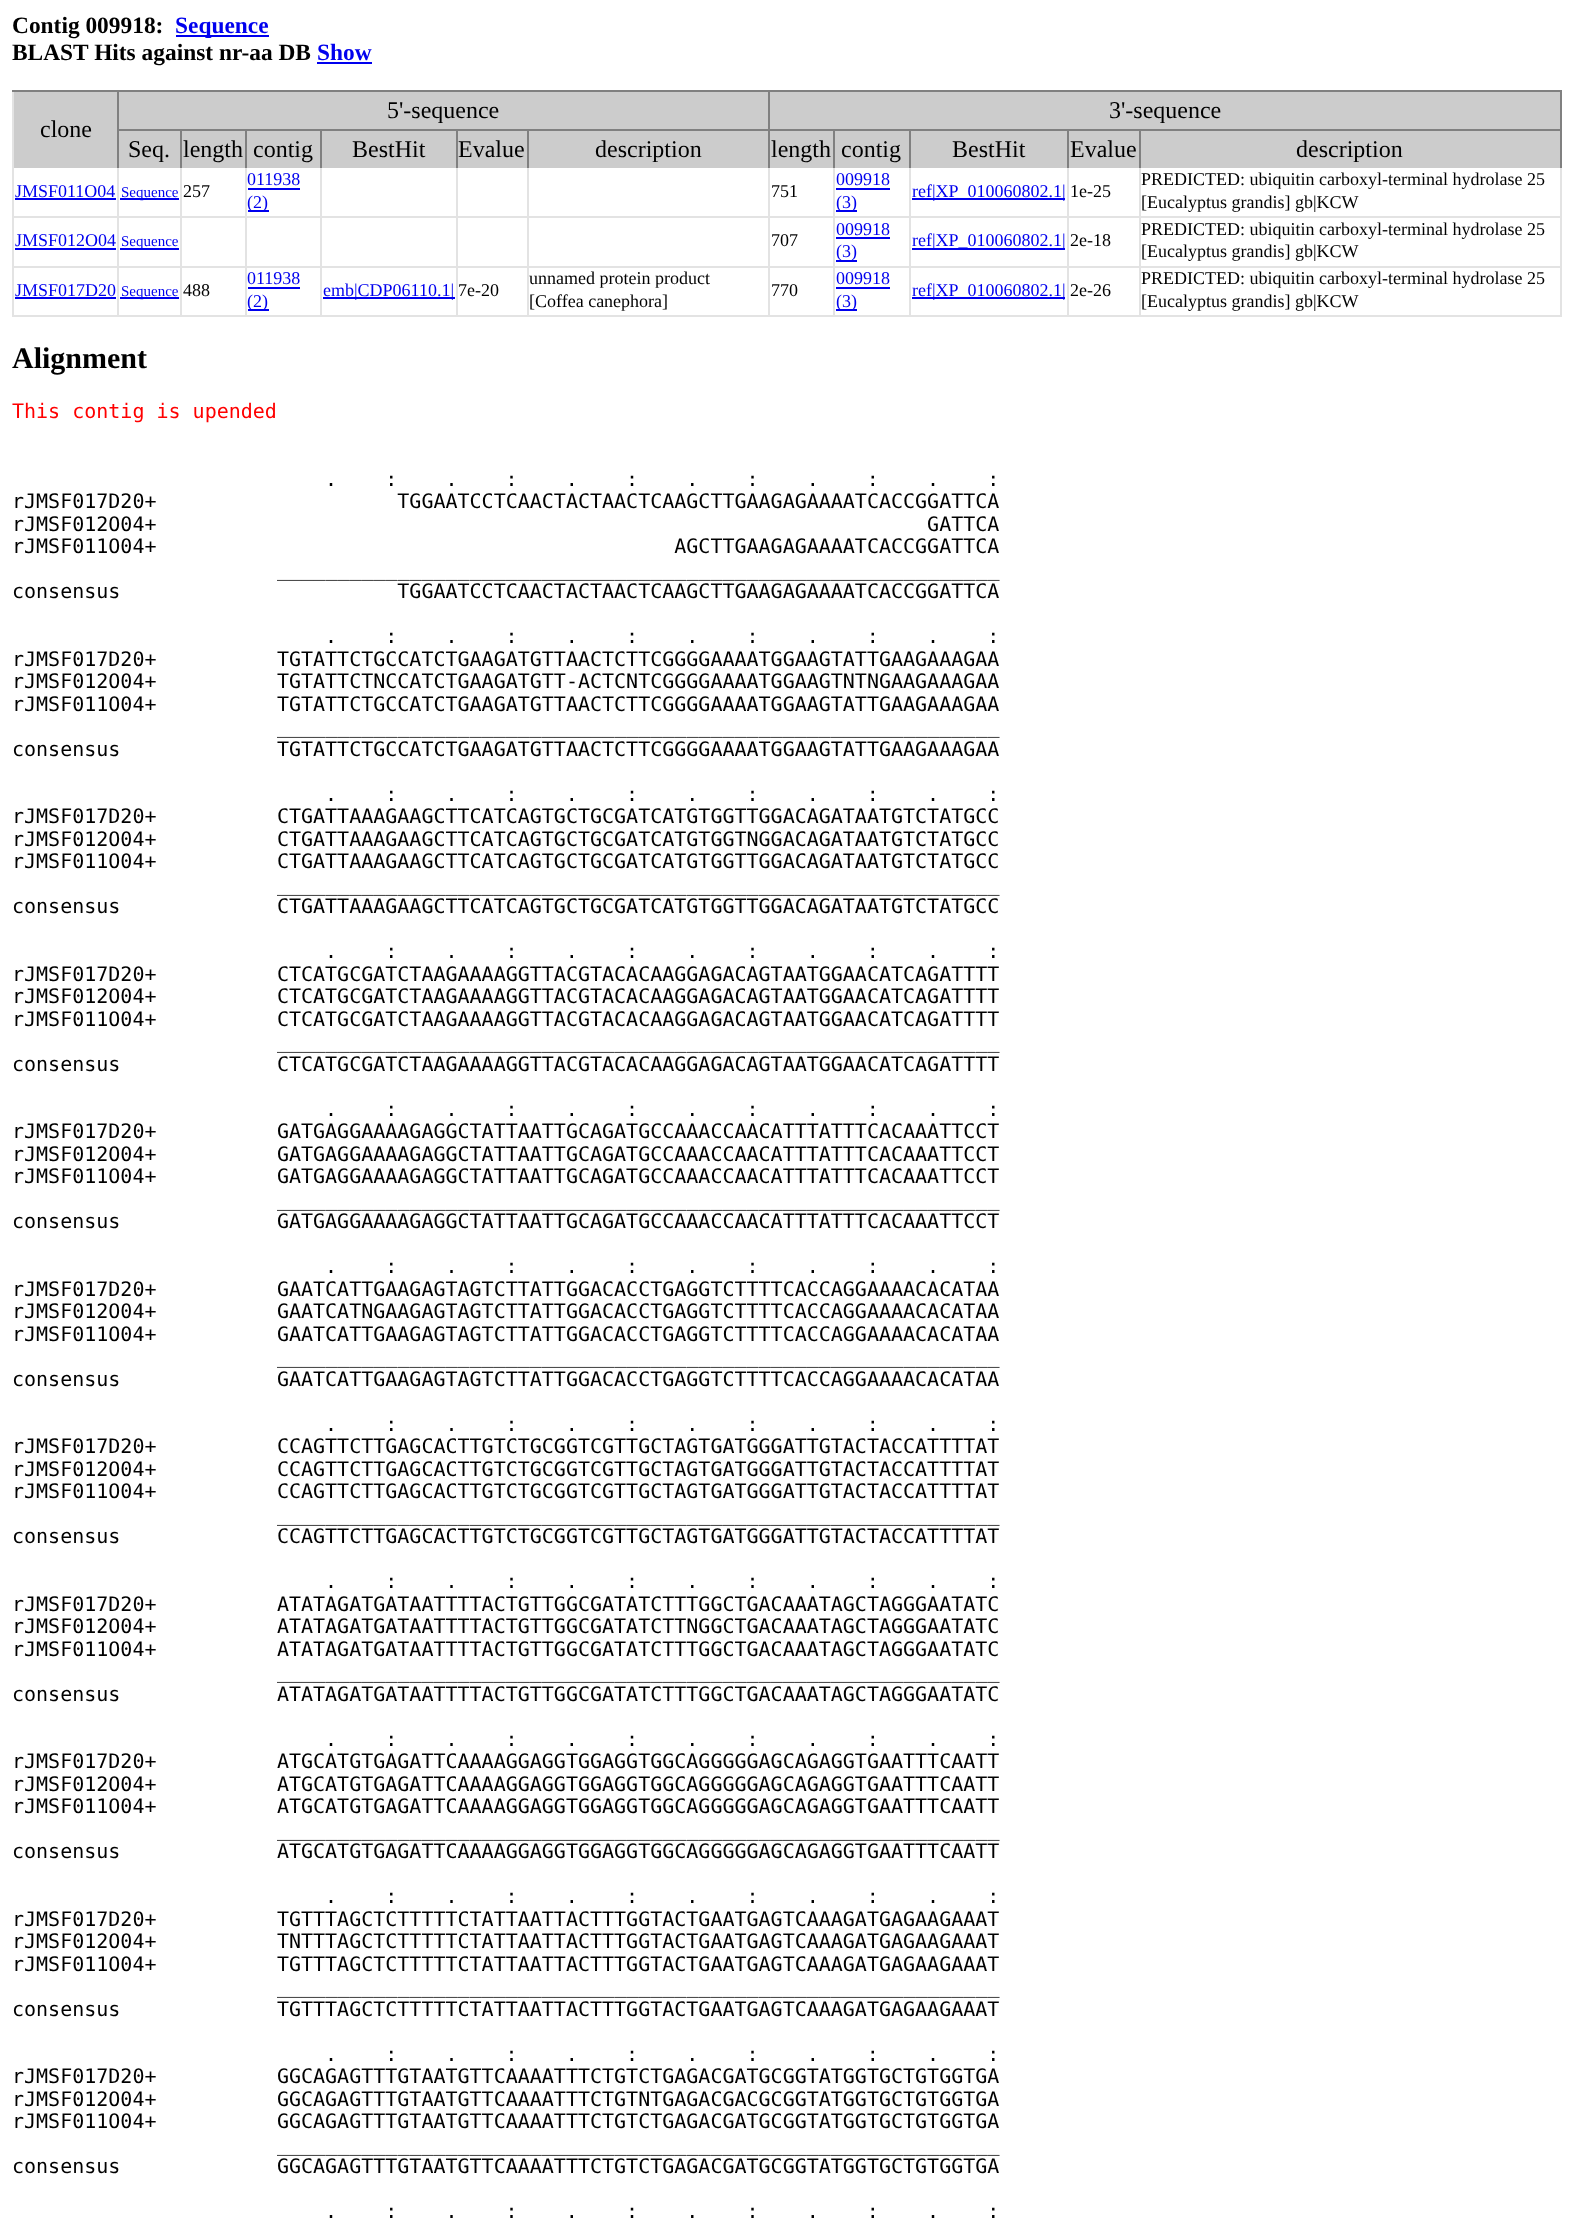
<svg xmlns="http://www.w3.org/2000/svg" width="1573" height="2232">
	<rect width="100%" height="100%" fill="#FFFFFF" />
	<text x="12" y="33" font-family="Liberation Serif" font-size="23.4" font-weight="700" fill="#000000">Contig 009918:</text>
	<rect x="176" y="35" width="93" height="2" fill="#0000EE" />
	<text x="175" y="33" font-family="Liberation Serif" font-size="23.4" font-weight="700" fill="#0000EE">Sequence</text>
	<text x="12" y="60" font-family="Liberation Serif" font-size="23.4" font-weight="700" fill="#000000">BLAST Hits against nr-aa DB</text>
	<text x="317" y="60" font-family="Liberation Serif" font-size="23.4" font-weight="700" fill="#0000EE">Show</text>
	<rect x="317" y="62" width="55" height="2" fill="#0000EE" />
	<rect x="1560" y="168" width="2" height="149" fill="#E3E3E3" />
	<rect x="12" y="315" width="1550" height="2" fill="#E3E3E3" />
	<rect x="12" y="90" width="2" height="227" fill="#E3E3E3" />
	<rect x="119" y="92" width="649" height="37" fill="#CCCCCC" />
	<rect x="12" y="90" width="1550" height="2" fill="#808080" />
	<rect x="117" y="129" width="1445" height="2" fill="#808080" />
	<rect x="1139" y="266" width="2" height="51" fill="#E3E3E3" />
	<rect x="1139" y="266" width="423" height="2" fill="#E3E3E3" />
	<rect x="1139" y="216" width="2" height="51" fill="#E3E3E3" />
	<rect x="1139" y="216" width="423" height="2" fill="#E3E3E3" />
	<rect x="1139" y="167" width="2" height="51" fill="#E3E3E3" />
	<rect x="1067" y="266" width="2" height="51" fill="#E3E3E3" />
	<rect x="1067" y="266" width="73" height="2" fill="#E3E3E3" />
	<rect x="1067" y="216" width="2" height="51" fill="#E3E3E3" />
	<rect x="1067" y="216" width="73" height="2" fill="#E3E3E3" />
	<rect x="1067" y="167" width="2" height="51" fill="#E3E3E3" />
	<rect x="909" y="266" width="2" height="51" fill="#E3E3E3" />
	<rect x="909" y="266" width="159" height="2" fill="#E3E3E3" />
	<rect x="909" y="216" width="2" height="51" fill="#E3E3E3" />
	<rect x="909" y="216" width="159" height="2" fill="#E3E3E3" />
	<rect x="909" y="167" width="2" height="51" fill="#E3E3E3" />
	<rect x="833" y="266" width="2" height="51" fill="#E3E3E3" />
	<rect x="833" y="266" width="78" height="2" fill="#E3E3E3" />
	<rect x="833" y="216" width="2" height="51" fill="#E3E3E3" />
	<rect x="833" y="216" width="78" height="2" fill="#E3E3E3" />
	<rect x="833" y="167" width="2" height="51" fill="#E3E3E3" />
	<rect x="768" y="266" width="2" height="51" fill="#E3E3E3" />
	<rect x="768" y="266" width="66" height="2" fill="#E3E3E3" />
	<rect x="768" y="216" width="2" height="51" fill="#E3E3E3" />
	<rect x="768" y="216" width="66" height="2" fill="#E3E3E3" />
	<rect x="768" y="167" width="2" height="51" fill="#E3E3E3" />
	<rect x="768" y="129" width="2" height="39" fill="#808080" />
	<rect x="768" y="90" width="2" height="41" fill="#808080" />
	<text x="387" y="118" font-family="Liberation Serif" font-size="24" fill="#000000">5'-sequence</text>
	<rect x="770" y="92" width="790" height="37" fill="#CCCCCC" />
	<rect x="1560" y="129" width="2" height="39" fill="#808080" />
	<rect x="1560" y="90" width="2" height="41" fill="#808080" />
	<text x="1109" y="118" font-family="Liberation Serif" font-size="24" fill="#000000">3'-sequence</text>
	<rect x="14" y="92" width="103" height="76" fill="#CCCCCC" />
	<rect x="527" y="266" width="2" height="51" fill="#E3E3E3" />
	<rect x="527" y="266" width="243" height="2" fill="#E3E3E3" />
	<rect x="527" y="216" width="2" height="51" fill="#E3E3E3" />
	<rect x="527" y="216" width="243" height="2" fill="#E3E3E3" />
	<rect x="527" y="167" width="2" height="51" fill="#E3E3E3" />
	<rect x="456" y="266" width="2" height="51" fill="#E3E3E3" />
	<rect x="456" y="266" width="72" height="2" fill="#E3E3E3" />
	<rect x="456" y="216" width="2" height="51" fill="#E3E3E3" />
	<rect x="456" y="216" width="72" height="2" fill="#E3E3E3" />
	<rect x="456" y="167" width="2" height="51" fill="#E3E3E3" />
	<rect x="320" y="266" width="2" height="51" fill="#E3E3E3" />
	<rect x="320" y="266" width="138" height="2" fill="#E3E3E3" />
	<rect x="320" y="216" width="2" height="51" fill="#E3E3E3" />
	<rect x="320" y="216" width="138" height="2" fill="#E3E3E3" />
	<rect x="320" y="167" width="2" height="51" fill="#E3E3E3" />
	<rect x="245" y="266" width="2" height="51" fill="#E3E3E3" />
	<rect x="245" y="266" width="76" height="2" fill="#E3E3E3" />
	<rect x="245" y="216" width="2" height="51" fill="#E3E3E3" />
	<rect x="245" y="216" width="76" height="2" fill="#E3E3E3" />
	<rect x="245" y="167" width="2" height="51" fill="#E3E3E3" />
	<rect x="180" y="266" width="2" height="51" fill="#E3E3E3" />
	<rect x="180" y="266" width="66" height="2" fill="#E3E3E3" />
	<rect x="180" y="216" width="2" height="51" fill="#E3E3E3" />
	<rect x="180" y="216" width="66" height="2" fill="#E3E3E3" />
	<rect x="180" y="167" width="2" height="51" fill="#E3E3E3" />
	<rect x="117" y="266" width="2" height="51" fill="#E3E3E3" />
	<rect x="117" y="266" width="65" height="2" fill="#E3E3E3" />
	<rect x="117" y="216" width="2" height="51" fill="#E3E3E3" />
	<rect x="117" y="216" width="65" height="2" fill="#E3E3E3" />
	<rect x="117" y="167" width="2" height="51" fill="#E3E3E3" />
	<rect x="117" y="90" width="2" height="78" fill="#808080" />
	<text x="40" y="137" font-family="Liberation Serif" font-size="24" fill="#000000">clone</text>
	<rect x="119" y="131" width="61" height="37" fill="#CCCCCC" />
	<rect x="180" y="129" width="2" height="39" fill="#808080" />
	<text x="128" y="157" font-family="Liberation Serif" font-size="24" fill="#000000">Seq.</text>
	<rect x="182" y="131" width="63" height="37" fill="#CCCCCC" />
	<rect x="245" y="129" width="2" height="39" fill="#808080" />
	<text x="183" y="157" font-family="Liberation Serif" font-size="24" fill="#000000">length</text>
	<rect x="247" y="131" width="73" height="37" fill="#CCCCCC" />
	<rect x="320" y="129" width="2" height="39" fill="#808080" />
	<text x="253" y="157" font-family="Liberation Serif" font-size="24" fill="#000000">contig</text>
	<rect x="322" y="131" width="134" height="37" fill="#CCCCCC" />
	<rect x="456" y="129" width="2" height="39" fill="#808080" />
	<text x="352" y="157" font-family="Liberation Serif" font-size="24" fill="#000000">BestHit</text>
	<rect x="458" y="131" width="69" height="37" fill="#CCCCCC" />
	<rect x="527" y="129" width="2" height="39" fill="#808080" />
	<text x="458" y="157" font-family="Liberation Serif" font-size="24" fill="#000000">Evalue</text>
	<rect x="529" y="131" width="239" height="37" fill="#CCCCCC" />
	<text x="595" y="157" font-family="Liberation Serif" font-size="24" fill="#000000">description</text>
	<rect x="770" y="131" width="63" height="37" fill="#CCCCCC" />
	<rect x="833" y="129" width="2" height="39" fill="#808080" />
	<text x="771" y="157" font-family="Liberation Serif" font-size="24" fill="#000000">length</text>
	<rect x="835" y="131" width="74" height="37" fill="#CCCCCC" />
	<rect x="909" y="129" width="2" height="39" fill="#808080" />
	<text x="841" y="157" font-family="Liberation Serif" font-size="24" fill="#000000">contig</text>
	<rect x="911" y="131" width="156" height="37" fill="#CCCCCC" />
	<rect x="1067" y="129" width="2" height="39" fill="#808080" />
	<text x="952" y="157" font-family="Liberation Serif" font-size="24" fill="#000000">BestHit</text>
	<rect x="1069" y="131" width="70" height="37" fill="#CCCCCC" />
	<rect x="1139" y="129" width="2" height="39" fill="#808080" />
	<text x="1070" y="157" font-family="Liberation Serif" font-size="24" fill="#000000">Evalue</text>
	<rect x="1141" y="131" width="419" height="37" fill="#CCCCCC" />
	<text x="1296" y="157" font-family="Liberation Serif" font-size="24" fill="#000000">description</text>
	<rect x="12" y="216" width="107" height="2" fill="#E3E3E3" />
	<text x="15" y="197" font-family="Liberation Serif" font-size="18" fill="#0000EE">JMSF011O04</text>
	<rect x="15" y="198" width="101" height="2" fill="#0000EE" />
	<rect x="120" y="198" width="59" height="2" fill="#0000EE" />
	<text x="121" y="197" font-family="Liberation Serif" font-size="15" fill="#0000EE">Sequence</text>
	<text x="183" y="197" font-family="Liberation Serif" font-size="18" fill="#000000">257</text>
	<text x="247" y="185" font-family="Liberation Serif" font-size="18" fill="#0000EE">011938</text>
	<rect x="248" y="188" width="52" height="2" fill="#0000EE" />
	<rect x="248" y="210" width="21" height="2" fill="#0000EE" />
	<text x="247" y="208" font-family="Liberation Serif" font-size="18" fill="#0000EE">(2)</text>
	<text x="771" y="197" font-family="Liberation Serif" font-size="18" fill="#000000">751</text>
	<text x="836" y="185" font-family="Liberation Serif" font-size="18" fill="#0000EE">009918</text>
	<rect x="836" y="188" width="54" height="2" fill="#0000EE" />
	<rect x="836" y="210" width="21" height="2" fill="#0000EE" />
	<text x="836" y="208" font-family="Liberation Serif" font-size="18" fill="#0000EE">(3)</text>
	<rect x="912" y="198" width="153" height="2" fill="#0000EE" />
	<text x="912" y="197" font-family="Liberation Serif" font-size="18" fill="#0000EE">ref|XP_010060802.1|</text>
	<g font-family="Liberation Serif" font-size="18" fill="#000000">
		<text x="1070" y="197">1e-25</text>
		<text x="1141" y="185">PREDICTED: ubiquitin carboxyl-terminal hydrolase 25</text>
		<text x="1141" y="208">[Eucalyptus grandis] gb|KCW</text>
	</g>
	<rect x="12" y="266" width="107" height="2" fill="#E3E3E3" />
	<text x="15" y="246" font-family="Liberation Serif" font-size="18" fill="#0000EE">JMSF012O04</text>
	<rect x="15" y="248" width="101" height="2" fill="#0000EE" />
	<rect x="120" y="248" width="59" height="2" fill="#0000EE" />
	<text x="121" y="246" font-family="Liberation Serif" font-size="15" fill="#0000EE">Sequence</text>
	<text x="771" y="246" font-family="Liberation Serif" font-size="18" fill="#000000">707</text>
	<text x="836" y="235" font-family="Liberation Serif" font-size="18" fill="#0000EE">009918</text>
	<rect x="836" y="237" width="54" height="2" fill="#0000EE" />
	<rect x="836" y="260" width="21" height="2" fill="#0000EE" />
	<text x="836" y="257" font-family="Liberation Serif" font-size="18" fill="#0000EE">(3)</text>
	<rect x="912" y="248" width="153" height="2" fill="#0000EE" />
	<text x="912" y="246" font-family="Liberation Serif" font-size="18" fill="#0000EE">ref|XP_010060802.1|</text>
	<g font-family="Liberation Serif" font-size="18" fill="#000000">
		<text x="1070" y="246">2e-18</text>
		<text x="1141" y="235">PREDICTED: ubiquitin carboxyl-terminal hydrolase 25</text>
		<text x="1141" y="257">[Eucalyptus grandis] gb|KCW</text>
	</g>
	<text x="15" y="296" font-family="Liberation Serif" font-size="18" fill="#0000EE">JMSF017D20</text>
	<rect x="15" y="297" width="101" height="2" fill="#0000EE" />
	<rect x="120" y="297" width="59" height="2" fill="#0000EE" />
	<text x="121" y="296" font-family="Liberation Serif" font-size="15" fill="#0000EE">Sequence</text>
	<text x="183" y="296" font-family="Liberation Serif" font-size="18" fill="#000000">488</text>
	<text x="247" y="284" font-family="Liberation Serif" font-size="18" fill="#0000EE">011938</text>
	<rect x="248" y="287" width="52" height="2" fill="#0000EE" />
	<rect x="248" y="309" width="21" height="2" fill="#0000EE" />
	<text x="247" y="307" font-family="Liberation Serif" font-size="18" fill="#0000EE">(2)</text>
	<rect x="323" y="297" width="132" height="2" fill="#0000EE" />
	<text x="323" y="296" font-family="Liberation Serif" font-size="18" fill="#0000EE">emb|CDP06110.1|</text>
	<g font-family="Liberation Serif" font-size="18" fill="#000000">
		<text x="458" y="296">7e-20</text>
		<text x="529" y="284">unnamed protein product</text>
		<text x="529" y="307">[Coffea canephora]</text>
		<text x="771" y="296">770</text>
	</g>
	<text x="836" y="284" font-family="Liberation Serif" font-size="18" fill="#0000EE">009918</text>
	<rect x="836" y="287" width="54" height="2" fill="#0000EE" />
	<rect x="836" y="309" width="21" height="2" fill="#0000EE" />
	<text x="836" y="307" font-family="Liberation Serif" font-size="18" fill="#0000EE">(3)</text>
	<rect x="912" y="297" width="153" height="2" fill="#0000EE" />
	<text x="912" y="296" font-family="Liberation Serif" font-size="18" fill="#0000EE">ref|XP_010060802.1|</text>
	<g font-family="Liberation Serif" font-size="18" fill="#000000">
		<text x="1070" y="296">2e-26</text>
		<text x="1141" y="284">PREDICTED: ubiquitin carboxyl-terminal hydrolase 25</text>
		<text x="1141" y="307">[Eucalyptus grandis] gb|KCW</text>
	</g>
	<text x="12" y="368" font-family="Liberation Serif" font-size="30" font-weight="700" fill="#000000">Alignment</text>
	<text x="12" y="418" font-family="DejaVu Sans Mono" font-size="20" fill="#FF0000">This contig is upended</text>
	<g font-family="DejaVu Sans Mono" font-size="20" fill="#000000">
		<text x="325" y="486" xml:space="preserve">.    :    .    :    .    :    .    :    .    :    .    :</text>
		<text x="12" y="508" xml:space="preserve">rJMSF017D20+                    TGGAATCCTCAACTACTAACTCAAGCTTGAAGAGAAAATCACCGGATTCA</text>
		<text x="12" y="531" xml:space="preserve">rJMSF012O04+                                                                GATTCA</text>
		<text x="12" y="553" xml:space="preserve">rJMSF011O04+                                           AGCTTGAAGAGAAAATCACCGGATTCA</text>
		<text x="277" y="576">____________________________________________________________</text>
		<text x="12" y="598" xml:space="preserve">consensus                       TGGAATCCTCAACTACTAACTCAAGCTTGAAGAGAAAATCACCGGATTCA</text>
		<text x="325" y="643" xml:space="preserve">.    :    .    :    .    :    .    :    .    :    .    :</text>
		<text x="12" y="666" xml:space="preserve">rJMSF017D20+          TGTATTCTGCCATCTGAAGATGTTAACTCTTCGGGGAAAATGGAAGTATTGAAGAAAGAA</text>
		<text x="12" y="688" xml:space="preserve">rJMSF012O04+          TGTATTCTNCCATCTGAAGATGTT-ACTCNTCGGGGAAAATGGAAGTNTNGAAGAAAGAA</text>
		<text x="12" y="711" xml:space="preserve">rJMSF011O04+          TGTATTCTGCCATCTGAAGATGTTAACTCTTCGGGGAAAATGGAAGTATTGAAGAAAGAA</text>
		<text x="277" y="733">____________________________________________________________</text>
		<text x="12" y="756" xml:space="preserve">consensus             TGTATTCTGCCATCTGAAGATGTTAACTCTTCGGGGAAAATGGAAGTATTGAAGAAAGAA</text>
		<text x="325" y="801" xml:space="preserve">.    :    .    :    .    :    .    :    .    :    .    :</text>
		<text x="12" y="823" xml:space="preserve">rJMSF017D20+          CTGATTAAAGAAGCTTCATCAGTGCTGCGATCATGTGGTTGGACAGATAATGTCTATGCC</text>
		<text x="12" y="846" xml:space="preserve">rJMSF012O04+          CTGATTAAAGAAGCTTCATCAGTGCTGCGATCATGTGGTNGGACAGATAATGTCTATGCC</text>
		<text x="12" y="868" xml:space="preserve">rJMSF011O04+          CTGATTAAAGAAGCTTCATCAGTGCTGCGATCATGTGGTTGGACAGATAATGTCTATGCC</text>
		<text x="277" y="891">____________________________________________________________</text>
		<text x="12" y="913" xml:space="preserve">consensus             CTGATTAAAGAAGCTTCATCAGTGCTGCGATCATGTGGTTGGACAGATAATGTCTATGCC</text>
		<text x="325" y="958" xml:space="preserve">.    :    .    :    .    :    .    :    .    :    .    :</text>
		<text x="12" y="981" xml:space="preserve">rJMSF017D20+          CTCATGCGATCTAAGAAAAGGTTACGTACACAAGGAGACAGTAATGGAACATCAGATTTT</text>
		<text x="12" y="1003" xml:space="preserve">rJMSF012O04+          CTCATGCGATCTAAGAAAAGGTTACGTACACAAGGAGACAGTAATGGAACATCAGATTTT</text>
		<text x="12" y="1026" xml:space="preserve">rJMSF011O04+          CTCATGCGATCTAAGAAAAGGTTACGTACACAAGGAGACAGTAATGGAACATCAGATTTT</text>
		<text x="277" y="1048">____________________________________________________________</text>
		<text x="12" y="1071" xml:space="preserve">consensus             CTCATGCGATCTAAGAAAAGGTTACGTACACAAGGAGACAGTAATGGAACATCAGATTTT</text>
		<text x="325" y="1116" xml:space="preserve">.    :    .    :    .    :    .    :    .    :    .    :</text>
		<text x="12" y="1138" xml:space="preserve">rJMSF017D20+          GATGAGGAAAAGAGGCTATTAATTGCAGATGCCAAACCAACATTTATTTCACAAATTCCT</text>
		<text x="12" y="1161" xml:space="preserve">rJMSF012O04+          GATGAGGAAAAGAGGCTATTAATTGCAGATGCCAAACCAACATTTATTTCACAAATTCCT</text>
		<text x="12" y="1183" xml:space="preserve">rJMSF011O04+          GATGAGGAAAAGAGGCTATTAATTGCAGATGCCAAACCAACATTTATTTCACAAATTCCT</text>
		<text x="277" y="1206">____________________________________________________________</text>
		<text x="12" y="1228" xml:space="preserve">consensus             GATGAGGAAAAGAGGCTATTAATTGCAGATGCCAAACCAACATTTATTTCACAAATTCCT</text>
		<text x="325" y="1273" xml:space="preserve">.    :    .    :    .    :    .    :    .    :    .    :</text>
		<text x="12" y="1296" xml:space="preserve">rJMSF017D20+          GAATCATTGAAGAGTAGTCTTATTGGACACCTGAGGTCTTTTCACCAGGAAAACACATAA</text>
		<text x="12" y="1318" xml:space="preserve">rJMSF012O04+          GAATCATNGAAGAGTAGTCTTATTGGACACCTGAGGTCTTTTCACCAGGAAAACACATAA</text>
		<text x="12" y="1341" xml:space="preserve">rJMSF011O04+          GAATCATTGAAGAGTAGTCTTATTGGACACCTGAGGTCTTTTCACCAGGAAAACACATAA</text>
		<text x="277" y="1363">____________________________________________________________</text>
		<text x="12" y="1386" xml:space="preserve">consensus             GAATCATTGAAGAGTAGTCTTATTGGACACCTGAGGTCTTTTCACCAGGAAAACACATAA</text>
		<text x="325" y="1431" xml:space="preserve">.    :    .    :    .    :    .    :    .    :    .    :</text>
		<text x="12" y="1453" xml:space="preserve">rJMSF017D20+          CCAGTTCTTGAGCACTTGTCTGCGGTCGTTGCTAGTGATGGGATTGTACTACCATTTTAT</text>
		<text x="12" y="1476" xml:space="preserve">rJMSF012O04+          CCAGTTCTTGAGCACTTGTCTGCGGTCGTTGCTAGTGATGGGATTGTACTACCATTTTAT</text>
		<text x="12" y="1498" xml:space="preserve">rJMSF011O04+          CCAGTTCTTGAGCACTTGTCTGCGGTCGTTGCTAGTGATGGGATTGTACTACCATTTTAT</text>
		<text x="277" y="1521">____________________________________________________________</text>
		<text x="12" y="1543" xml:space="preserve">consensus             CCAGTTCTTGAGCACTTGTCTGCGGTCGTTGCTAGTGATGGGATTGTACTACCATTTTAT</text>
		<text x="325" y="1588" xml:space="preserve">.    :    .    :    .    :    .    :    .    :    .    :</text>
		<text x="12" y="1611" xml:space="preserve">rJMSF017D20+          ATATAGATGATAATTTTACTGTTGGCGATATCTTTGGCTGACAAATAGCTAGGGAATATC</text>
		<text x="12" y="1633" xml:space="preserve">rJMSF012O04+          ATATAGATGATAATTTTACTGTTGGCGATATCTTNGGCTGACAAATAGCTAGGGAATATC</text>
		<text x="12" y="1656" xml:space="preserve">rJMSF011O04+          ATATAGATGATAATTTTACTGTTGGCGATATCTTTGGCTGACAAATAGCTAGGGAATATC</text>
		<text x="277" y="1678">____________________________________________________________</text>
		<text x="12" y="1701" xml:space="preserve">consensus             ATATAGATGATAATTTTACTGTTGGCGATATCTTTGGCTGACAAATAGCTAGGGAATATC</text>
		<text x="325" y="1746" xml:space="preserve">.    :    .    :    .    :    .    :    .    :    .    :</text>
		<text x="12" y="1768" xml:space="preserve">rJMSF017D20+          ATGCATGTGAGATTCAAAAGGAGGTGGAGGTGGCAGGGGGAGCAGAGGTGAATTTCAATT</text>
		<text x="12" y="1791" xml:space="preserve">rJMSF012O04+          ATGCATGTGAGATTCAAAAGGAGGTGGAGGTGGCAGGGGGAGCAGAGGTGAATTTCAATT</text>
		<text x="12" y="1813" xml:space="preserve">rJMSF011O04+          ATGCATGTGAGATTCAAAAGGAGGTGGAGGTGGCAGGGGGAGCAGAGGTGAATTTCAATT</text>
		<text x="277" y="1836">____________________________________________________________</text>
		<text x="12" y="1858" xml:space="preserve">consensus             ATGCATGTGAGATTCAAAAGGAGGTGGAGGTGGCAGGGGGAGCAGAGGTGAATTTCAATT</text>
		<text x="325" y="1903" xml:space="preserve">.    :    .    :    .    :    .    :    .    :    .    :</text>
		<text x="12" y="1926" xml:space="preserve">rJMSF017D20+          TGTTTAGCTCTTTTTCTATTAATTACTTTGGTACTGAATGAGTCAAAGATGAGAAGAAAT</text>
		<text x="12" y="1948" xml:space="preserve">rJMSF012O04+          TNTTTAGCTCTTTTTCTATTAATTACTTTGGTACTGAATGAGTCAAAGATGAGAAGAAAT</text>
		<text x="12" y="1971" xml:space="preserve">rJMSF011O04+          TGTTTAGCTCTTTTTCTATTAATTACTTTGGTACTGAATGAGTCAAAGATGAGAAGAAAT</text>
		<text x="277" y="1993">____________________________________________________________</text>
		<text x="12" y="2016" xml:space="preserve">consensus             TGTTTAGCTCTTTTTCTATTAATTACTTTGGTACTGAATGAGTCAAAGATGAGAAGAAAT</text>
		<text x="325" y="2061" xml:space="preserve">.    :    .    :    .    :    .    :    .    :    .    :</text>
		<text x="12" y="2083" xml:space="preserve">rJMSF017D20+          GGCAGAGTTTGTAATGTTCAAAATTTCTGTCTGAGACGATGCGGTATGGTGCTGTGGTGA</text>
		<text x="12" y="2106" xml:space="preserve">rJMSF012O04+          GGCAGAGTTTGTAATGTTCAAAATTTCTGTNTGAGACGACGCGGTATGGTGCTGTGGTGA</text>
		<text x="12" y="2128" xml:space="preserve">rJMSF011O04+          GGCAGAGTTTGTAATGTTCAAAATTTCTGTCTGAGACGATGCGGTATGGTGCTGTGGTGA</text>
		<text x="277" y="2151">____________________________________________________________</text>
		<text x="12" y="2173" xml:space="preserve">consensus             GGCAGAGTTTGTAATGTTCAAAATTTCTGTCTGAGACGATGCGGTATGGTGCTGTGGTGA</text>
		<text x="325" y="2218" xml:space="preserve">.    :    .    :    .    :    .    :    .    :    .    :</text>
	</g>
</svg>
